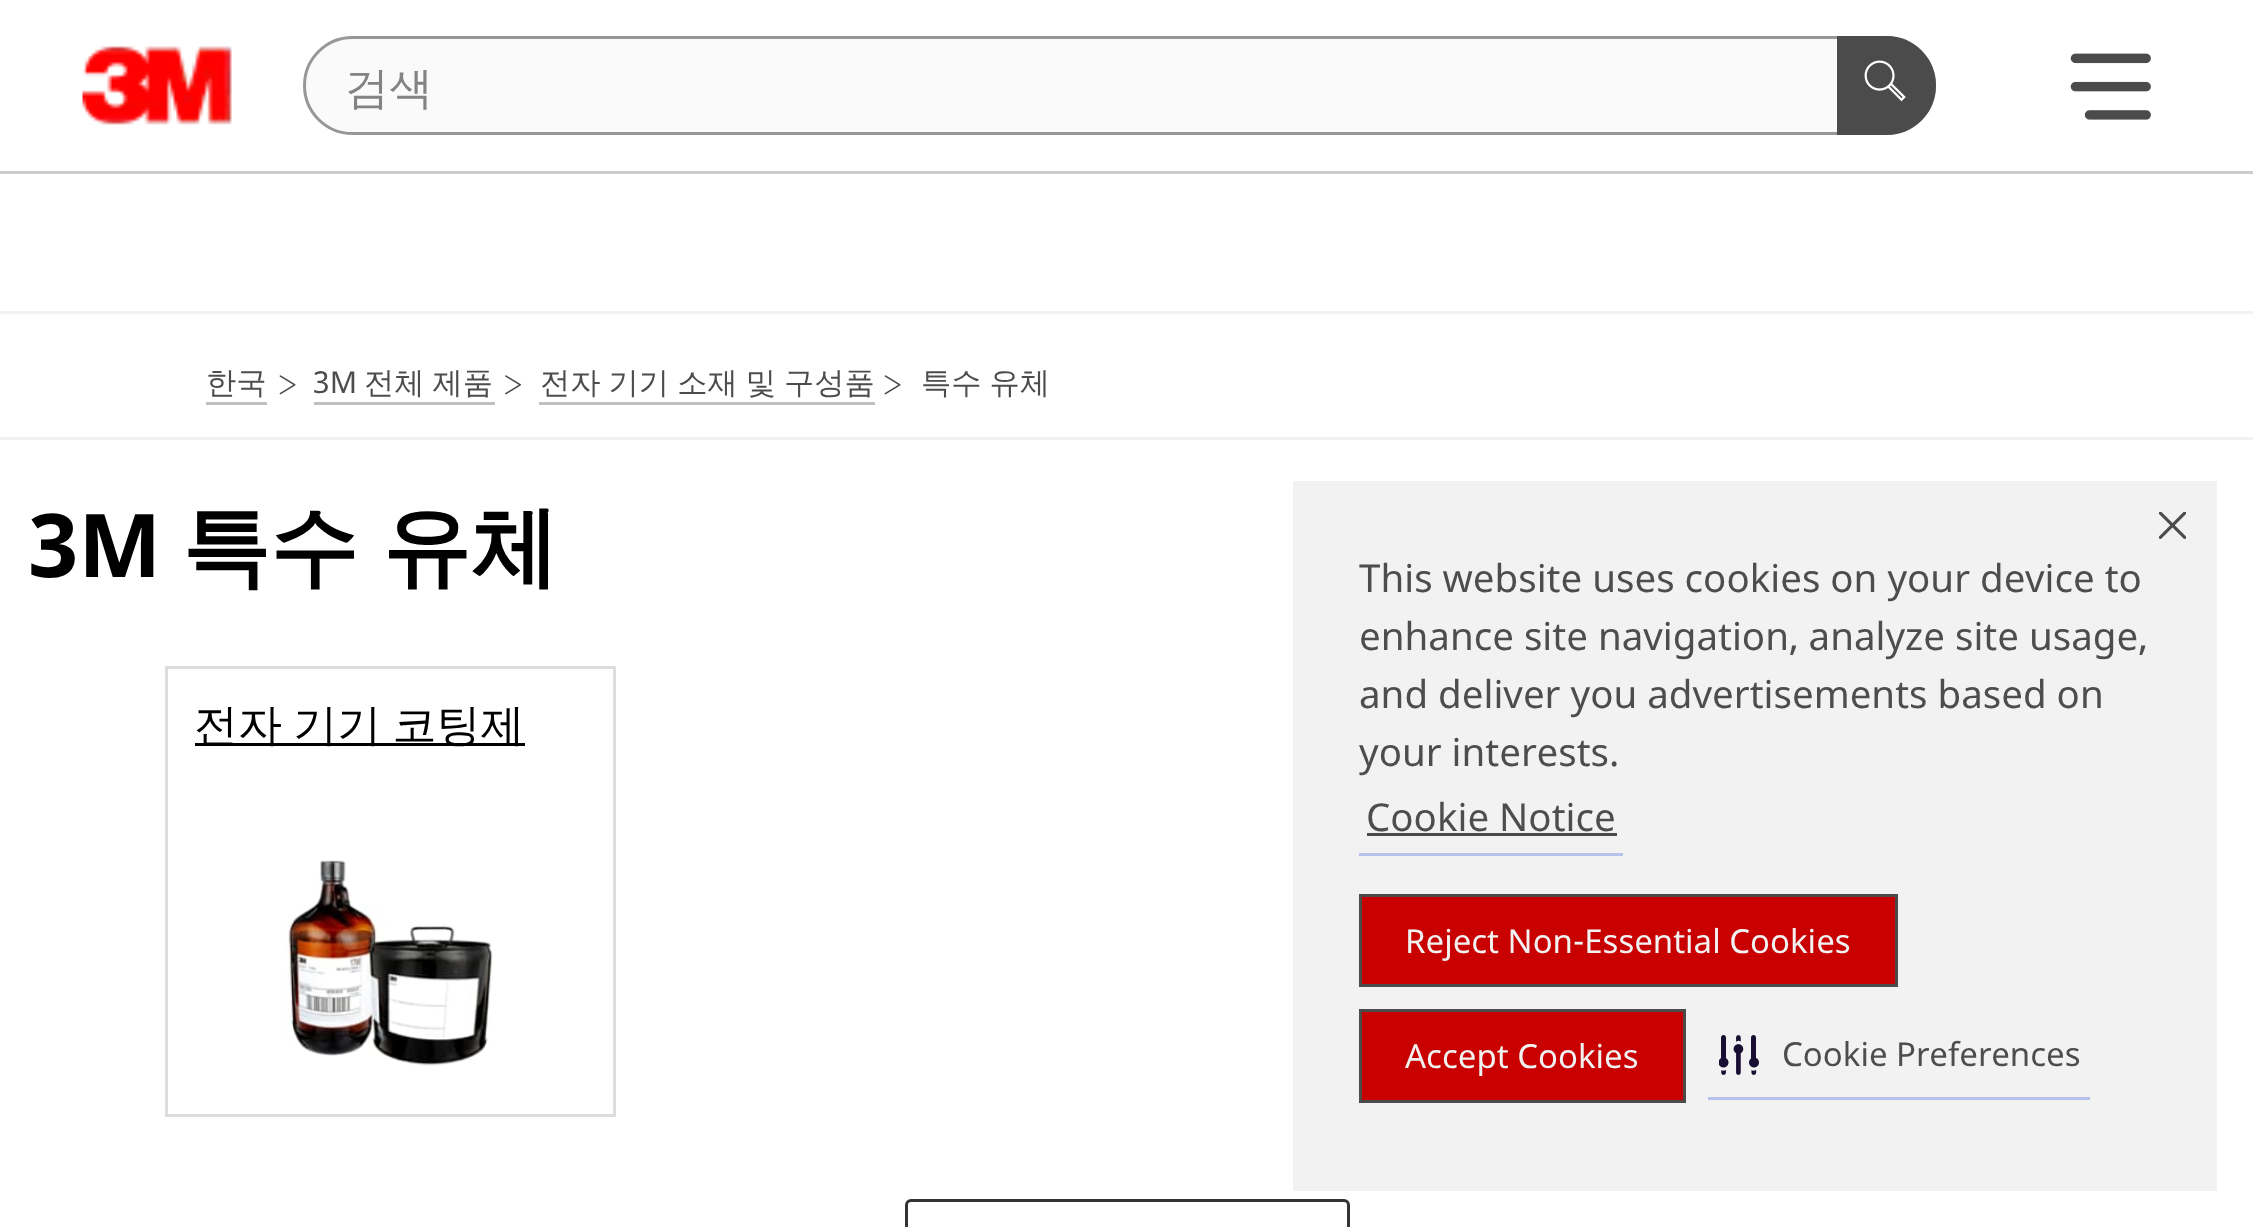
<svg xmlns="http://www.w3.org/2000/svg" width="2253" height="1227">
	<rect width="100%" height="100%" fill="#FFFFFF" />
	<rect x="0" y="311" width="2253" height="3" fill="#F2F2F2" />
	<image x="82" y="46" width="150" height="79" href="assets/img1.png" />
	<rect x="304.5" y="37.5" width="1630" height="96" rx="48" fill="#FAFAFA" stroke="#979797" stroke-width="3" />
	<text x="345" y="103" font-family="WenQuanYi Zen Hei" font-size="44" font-weight="500" fill="#838383">검색</text>
	<path d="M1837 36H1886.5C1914 36 1936 58 1936 85.5C1936 113 1914 135 1886.5 135H1837Z" fill="#4B4B4B" />
	<image x="1864" y="60" width="42" height="42" href="assets/img2.png" />
	<image x="2070" y="53" width="81" height="67" href="assets/img3.png" />
	<rect x="0" y="171" width="2253" height="3" fill="#CCCCCC" />
	<rect x="0" y="437" width="2253" height="3" fill="#F2F2F2" />
	<text x="206" y="393" font-family="WenQuanYi Zen Hei" font-size="30.25" font-weight="500" fill="#4D4D4D">한국</text>
	<rect x="206" y="402" width="61" height="3" fill="#BFBFBF" />
	<image x="279" y="375" width="17" height="20" href="assets/img4.png" />
	<text x="313" y="393" font-family="Noto Sans" font-size="30.25" fill="#4D4D4D">3M</text>
	<text x="364" y="393" word-spacing="-1" font-family="WenQuanYi Zen Hei" font-size="30.25" font-weight="500" fill="#4D4D4D">전체 제품</text>
	<rect x="314" y="402" width="181" height="3" fill="#BFBFBF" />
	<image x="505" y="375" width="16" height="20" href="assets/img5.png" />
	<text x="540" y="393" word-spacing="-1" font-family="WenQuanYi Zen Hei" font-size="30.25" font-weight="500" fill="#4D4D4D">전자 기기 소재 및 구성품</text>
	<rect x="539" y="402" width="336" height="3" fill="#BFBFBF" />
	<image x="884" y="375" width="17" height="20" href="assets/img4.png" />
	<text x="921" y="393" word-spacing="-1" font-family="WenQuanYi Zen Hei" font-size="30.25" font-weight="500" fill="#4D4D4D">특수 유체</text>
	<text x="28" y="577" font-family="Noto Sans" font-size="88" font-weight="700" fill="#000000">3M</text>
	<text x="182" y="577" word-spacing="-2" font-family="WenQuanYi Zen Hei" font-size="88" font-weight="700" fill="#000000">특수 유체</text>
	<rect x="166.5" y="667.5" width="448" height="448" fill="none" stroke="#DDDDDD" stroke-width="3" />
	<rect x="195" y="743" width="330" height="3" fill="#000000" />
	<text x="194" y="740" word-spacing="-2" font-family="WenQuanYi Zen Hei" font-size="44" font-weight="500" fill="#000000">전자 기기 코팅제</text>
	<image x="284" y="860" width="209" height="206" href="assets/img6.png" />
	<rect x="906.5" y="1200.5" width="442" height="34" rx="4.5" fill="none" stroke="#333333" stroke-width="3" />
	<rect x="1293" y="481" width="924" height="710" fill="#F2F2F2" />
	<g font-family="Noto Sans" font-size="38.5" fill="#4D4D4D">
		<text x="1359" y="592">This website uses cookies on your device to</text>
		<text x="1359" y="650">enhance site navigation, analyze site usage,</text>
		<text x="1359" y="708">and deliver you advertisements based on</text>
		<text x="1359" y="766">your interests.</text>
	</g>
	<rect x="1359" y="853" width="264" height="3" fill="#B6C2E9" />
	<text x="1366" y="831" font-family="Noto Sans" font-size="38.5" fill="#4D4D4D">Cookie Notice</text>
	<rect x="1367" y="833" width="250" height="3" fill="#4B4B4B" />
	<image x="2159" y="512" width="27" height="27" href="assets/img7.png" />
	<rect x="1360.5" y="895.5" width="536" height="90" fill="#C80000" stroke="#4B4B4B" stroke-width="3" />
	<text x="1405" y="953" font-family="Noto Sans" font-size="33" fill="#F2F2F2">Reject Non-Essential Cookies</text>
	<rect x="1360.5" y="1010.5" width="324" height="91" fill="#C80000" stroke="#4B4B4B" stroke-width="3" />
	<text x="1405" y="1068" font-family="Noto Sans" font-size="33" fill="#F2F2F2">Accept Cookies</text>
	<rect x="1708" y="1097" width="382" height="3" fill="#B6C2E9" />
	<image x="1719" y="1035" width="40" height="40" href="assets/img8.png" />
	<text x="1782" y="1066" font-family="Noto Sans" font-size="33" fill="#4D4D4D">Cookie Preferences</text>
</svg>
